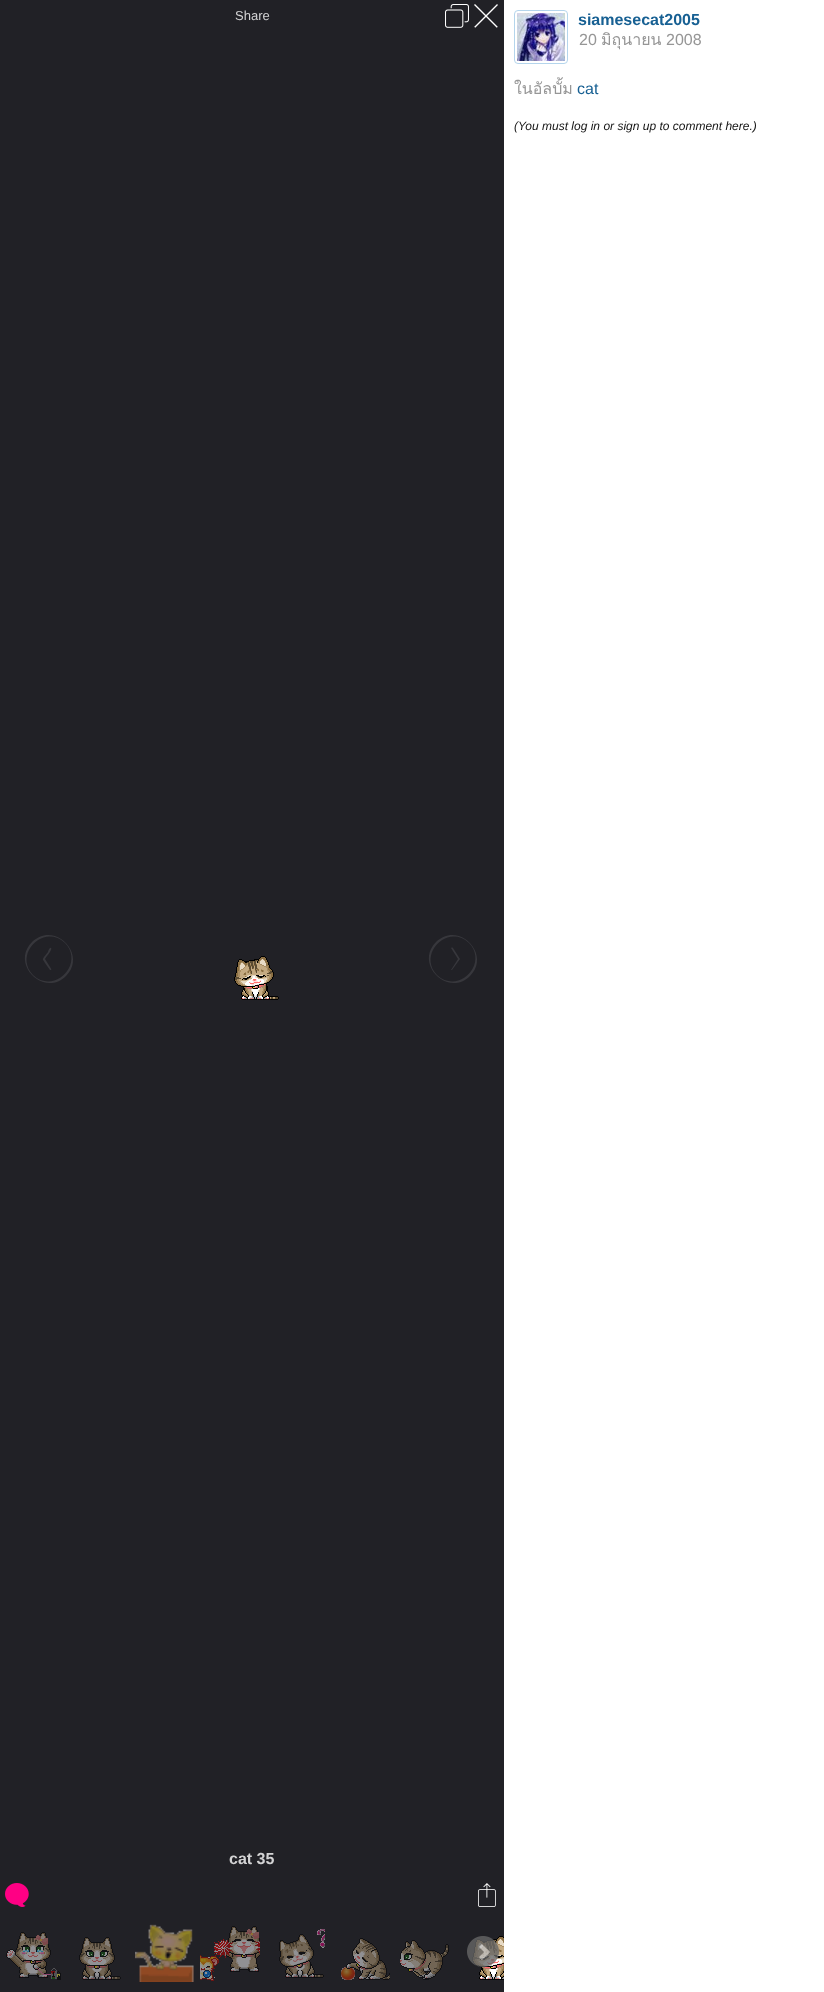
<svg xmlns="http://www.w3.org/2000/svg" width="824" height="1992">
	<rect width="100%" height="100%" fill="#212126" />
	<image x="445" y="4" width="24" height="24" href="assets/img1.png" />
	<image x="474" y="4" width="24" height="24" href="assets/img2.png" />
	<text x="235" y="20" font-family="Liberation Sans" font-size="13" fill="#D3D3D4">Share</text>
	<path d="M32 942C54 920 88 954 66 976C44 998 10 964 32 942ZM33 975C54 995 85 964 65 943C44 923 13 954 33 975ZM51 948C53 949 46 957 45 959L50 967C53 971 50 970 50 970L45 963C43 959 42 960 44 957L48 952C48 951 50 947 51 948Z" fill="#37373C" />
	<image x="234" y="956" width="45" height="44" href="assets/img3.png" />
	<path d="M436 942C458 920 492 954 470 976C448 998 414 964 436 942ZM437 975C458 995 489 964 469 943C448 923 417 954 437 975ZM453 948L460 959L452 970H451L458 959L451 948C451 948 452 947 453 948Z" fill="#37373C" />
	<text x="229" y="1864" font-family="Liberation Sans" font-size="16" font-weight="700" fill="#D3D3D4">cat 35</text>
	<image x="5" y="1883" width="24" height="24" href="assets/img4.png" />
	<image x="478" y="1883" width="18" height="24" href="assets/img5.png" />
	<image x="6" y="1932" width="55" height="48" href="assets/img6.png" />
	<image x="79" y="1937" width="42" height="43" href="assets/img7.png" />
	<image x="135" y="1924" width="59" height="58" href="assets/img8.png" />
	<image x="200" y="1926" width="60" height="55" href="assets/img9.png" />
	<image x="279" y="1929" width="46" height="49" href="assets/img10.png" />
	<image x="341" y="1938" width="49" height="42" href="assets/img11.png" />
	<image x="400" y="1940" width="49" height="40" href="assets/img12.png" />
	<image x="472" y="1936" width="32" height="44" href="assets/img13.png" />
	<image x="467" y="1936" width="32" height="31" href="assets/img14.png" />
	<rect x="504" y="0" width="320" height="1992" fill="#FFFFFF" />
	<image x="517" y="13" width="48" height="48" href="assets/img15.png" />
	<rect x="514.5" y="10.5" width="53" height="53" rx="3.5" fill="none" stroke="#B4D5EC" />
	<text x="578" y="25" font-family="Liberation Sans" font-size="16" font-weight="700" fill="#176093">siamesecat2005</text>
	<text x="579" y="45" font-family="Liberation Sans" font-size="16" fill="#969696">20</text>
	<text x="601" y="45" font-family="Loma" font-size="16" fill="#969696">มิถุนายน</text>
	<text x="666" y="45" font-family="Liberation Sans" font-size="16" fill="#969696">2008</text>
	<text x="514" y="94" font-family="Loma" font-size="16" fill="#969696">ในอัลบั้ม</text>
	<text x="577" y="94" font-family="Liberation Sans" font-size="16" fill="#176093">cat</text>
	<text x="514" y="130" font-family="Liberation Sans" font-size="12" font-style="italic" fill="#141414">(You must log in or sign up to comment here.)</text>
</svg>
